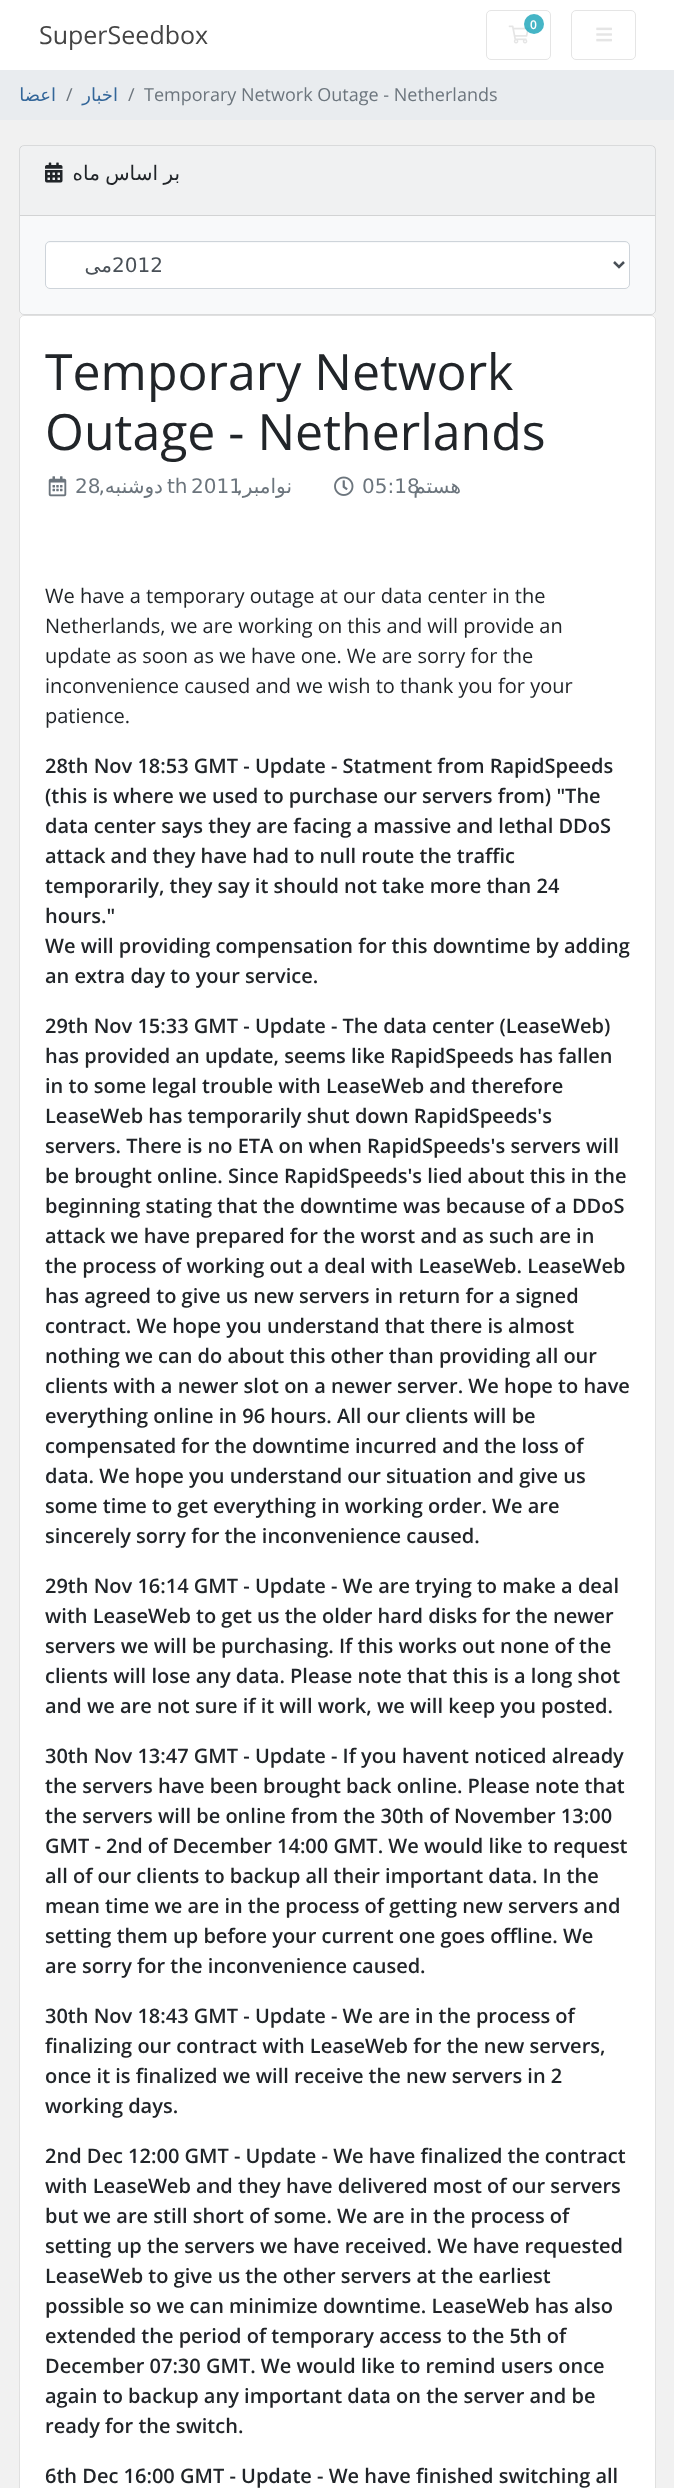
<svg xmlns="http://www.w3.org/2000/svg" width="674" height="2488">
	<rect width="100%" height="100%" fill="#F1F1F1" />
	<rect x="0" y="0" width="674" height="70" fill="#FFFFFF" />
	<text x="39" y="44" font-family="Open Sans" font-size="25" fill="#444444">SuperSeedbox</text>
	<rect x="486.5" y="10.5" width="64" height="49" rx="4.5" fill="none" stroke="#E5E5E5" />
	<image x="508" y="25" width="21" height="19" href="assets/img1.png" />
	<circle cx="534" cy="24" r="10" fill="#17A2B8" fill-opacity="0.8" />
	<text x="530" y="29" font-family="Open Sans" font-size="12" font-weight="600" fill="#FFFFFF">0</text>
	<rect x="571.5" y="10.5" width="64" height="49" rx="4.5" fill="none" stroke="#E5E5E5" />
	<image x="596" y="27" width="16" height="15" href="assets/img2.png" />
	<rect x="0" y="70" width="674" height="50" fill="#E9ECEF" />
	<text x="56" y="101" font-family="DejaVu Sans" font-size="18" direction="rtl" fill="#336699">اعضا</text>
	<text x="66" y="101" font-family="Open Sans" font-size="18" fill="#6C757D">/</text>
	<text x="118" y="101" font-family="DejaVu Sans" font-size="18" direction="rtl" fill="#336699">اخبار</text>
	<g font-family="Open Sans" font-size="18" fill="#6C757D">
		<text x="128" y="101">/</text>
		<text x="144" y="101">Temporary Network Outage - Netherlands</text>
	</g>
	<rect x="19" y="145" width="637" height="170" rx="5" fill="#F8F9FA" />
	<rect x="19.5" y="145.5" width="636" height="169" rx="4.5" fill="none" stroke="#000000" stroke-opacity="0.12" />
	<rect x="20" y="146" width="635" height="69" fill="#000000" fill-opacity="0.03" />
	<rect x="20" y="215" width="635" height="1" fill="#D2D3D4" />
	<image x="45" y="162" width="18" height="21" href="assets/img3.png" />
	<text x="180" y="180" word-spacing="-1" font-family="DejaVu Sans" font-size="20" direction="rtl" fill="#212529">بر اساس ماه</text>
	<rect x="46" y="243" width="583" height="45" rx="4" fill="#FFFFFF" />
	<rect x="45.5" y="241.5" width="584" height="47" rx="4.5" fill="none" stroke="#CED4DA" />
	<path d="M614 262L619 267L624 262" fill="none" stroke="#495057" stroke-width="2.5" />
	<text x="112" y="272" font-family="DejaVu Sans" font-size="20" direction="rtl" fill="#495057">می</text>
	<text x="112" y="272" font-family="DejaVu Sans" font-size="20" fill="#495057">2012</text>
	<rect x="19" y="315" width="637" height="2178" rx="5" fill="#FFFFFF" />
	<rect x="19.5" y="315.5" width="636" height="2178" rx="4.5" fill="none" stroke="#000000" stroke-opacity="0.12" />
	<g font-family="Open Sans" font-size="50" fill="#212529">
		<text x="45" y="390">Temporary Network</text>
		<text x="45" y="450">Outage - Netherlands</text>
	</g>
	<image x="48" y="476" width="19" height="21" href="assets/img4.png" />
	<text x="75" y="493" font-family="DejaVu Sans" font-size="20" fill="#6C757D">28</text>
	<text x="163" y="493" font-family="DejaVu Sans" font-size="20" direction="rtl" fill="#6C757D">دوشنبه,</text>
	<g font-family="DejaVu Sans" font-size="20" fill="#6C757D">
		<text x="167" y="493">th</text>
		<text x="191" y="493">2011</text>
	</g>
	<text x="292" y="493" font-family="DejaVu Sans" font-size="20" direction="rtl" fill="#6C757D">نوامبر,</text>
	<image x="334" y="476" width="20" height="20" href="assets/img5.png" />
	<text x="362" y="493" font-family="DejaVu Sans" font-size="20" fill="#6C757D">05:18</text>
	<text x="461" y="493" font-family="DejaVu Sans" font-size="20" direction="rtl" fill="#6C757D">هستم</text>
	<g font-family="Open Sans" font-size="20" fill="#212529">
		<text x="45" y="603">We have a temporary outage at our data center in the</text>
		<text x="45" y="633">Netherlands, we are working on this and will provide an</text>
		<text x="45" y="663">update as soon as we have one. We are sorry for the</text>
		<text x="45" y="693">inconvenience caused and we wish to thank you for your</text>
		<text x="45" y="723">patience.</text>
	</g>
	<g font-family="Open Sans" font-size="20" font-weight="600" fill="#212529">
		<text x="45" y="773">28th Nov 18:53 GMT - Update - Statment from RapidSpeeds</text>
		<text x="45" y="803">(this is where we used to purchase our servers from) "The</text>
		<text x="45" y="833">data center says they are facing a massive and lethal DDoS</text>
		<text x="45" y="863">attack and they have had to null route the traffic</text>
		<text x="45" y="893">temporarily, they say it should not take more than 24</text>
		<text x="45" y="923">hours."</text>
		<text x="45" y="953">We will providing compensation for this downtime by adding</text>
		<text x="45" y="983">an extra day to your service.</text>
		<text x="45" y="1033">29th Nov 15:33 GMT - Update - The data center (LeaseWeb)</text>
		<text x="45" y="1063">has provided an update, seems like RapidSpeeds has fallen</text>
		<text x="45" y="1093">in to some legal trouble with LeaseWeb and therefore</text>
		<text x="45" y="1123">LeaseWeb has temporarily shut down RapidSpeeds's</text>
		<text x="45" y="1153">servers. There is no ETA on when RapidSpeeds's servers will</text>
		<text x="45" y="1183">be brought online. Since RapidSpeeds's lied about this in the</text>
		<text x="45" y="1213">beginning stating that the downtime was because of a DDoS</text>
		<text x="45" y="1243">attack we have prepared for the worst and as such are in</text>
		<text x="45" y="1273">the process of working out a deal with LeaseWeb. LeaseWeb</text>
		<text x="45" y="1303">has agreed to give us new servers in return for a signed</text>
		<text x="45" y="1333">contract. We hope you understand that there is almost</text>
		<text x="45" y="1363">nothing we can do about this other than providing all our</text>
		<text x="45" y="1393">clients with a newer slot on a newer server. We hope to have</text>
		<text x="45" y="1423">everything online in 96 hours. All our clients will be</text>
		<text x="45" y="1453">compensated for the downtime incurred and the loss of</text>
		<text x="45" y="1483">data. We hope you understand our situation and give us</text>
		<text x="45" y="1513">some time to get everything in working order. We are</text>
		<text x="45" y="1543">sincerely sorry for the inconvenience caused.</text>
		<text x="45" y="1593">29th Nov 16:14 GMT - Update - We are trying to make a deal</text>
		<text x="45" y="1623">with LeaseWeb to get us the older hard disks for the newer</text>
		<text x="45" y="1653">servers we will be purchasing. If this works out none of the</text>
		<text x="45" y="1683">clients will lose any data. Please note that this is a long shot</text>
		<text x="45" y="1713">and we are not sure if it will work, we will keep you posted.</text>
		<text x="45" y="1763">30th Nov 13:47 GMT - Update - If you havent noticed already</text>
		<text x="45" y="1793">the servers have been brought back online. Please note that</text>
		<text x="45" y="1823">the servers will be online from the 30th of November 13:00</text>
		<text x="45" y="1853">GMT - 2nd of December 14:00 GMT. We would like to request</text>
		<text x="45" y="1883">all of our clients to backup all their important data. In the</text>
		<text x="45" y="1913">mean time we are in the process of getting new servers and</text>
		<text x="45" y="1943">setting them up before your current one goes offline. We</text>
		<text x="45" y="1973">are sorry for the inconvenience caused.</text>
		<text x="45" y="2023">30th Nov 18:43 GMT - Update - We are in the process of</text>
		<text x="45" y="2053">finalizing our contract with LeaseWeb for the new servers,</text>
		<text x="45" y="2083">once it is finalized we will receive the new servers in 2</text>
		<text x="45" y="2113">working days.</text>
		<text x="45" y="2163">2nd Dec 12:00 GMT - Update - We have finalized the contract</text>
		<text x="45" y="2193">with LeaseWeb and they have delivered most of our servers</text>
		<text x="45" y="2223">but we are still short of some. We are in the process of</text>
		<text x="45" y="2253">setting up the servers we have received. We have requested</text>
		<text x="45" y="2283">LeaseWeb to give us the other servers at the earliest</text>
		<text x="45" y="2313">possible so we can minimize downtime. LeaseWeb has also</text>
		<text x="45" y="2343">extended the period of temporary access to the 5th of</text>
		<text x="45" y="2373">December 07:30 GMT. We would like to remind users once</text>
		<text x="45" y="2403">again to backup any important data on the server and be</text>
		<text x="45" y="2433">ready for the switch.</text>
		<text x="45" y="2483">6th Dec 16:00 GMT - Update - We have finished switching all</text>
	</g>
</svg>
